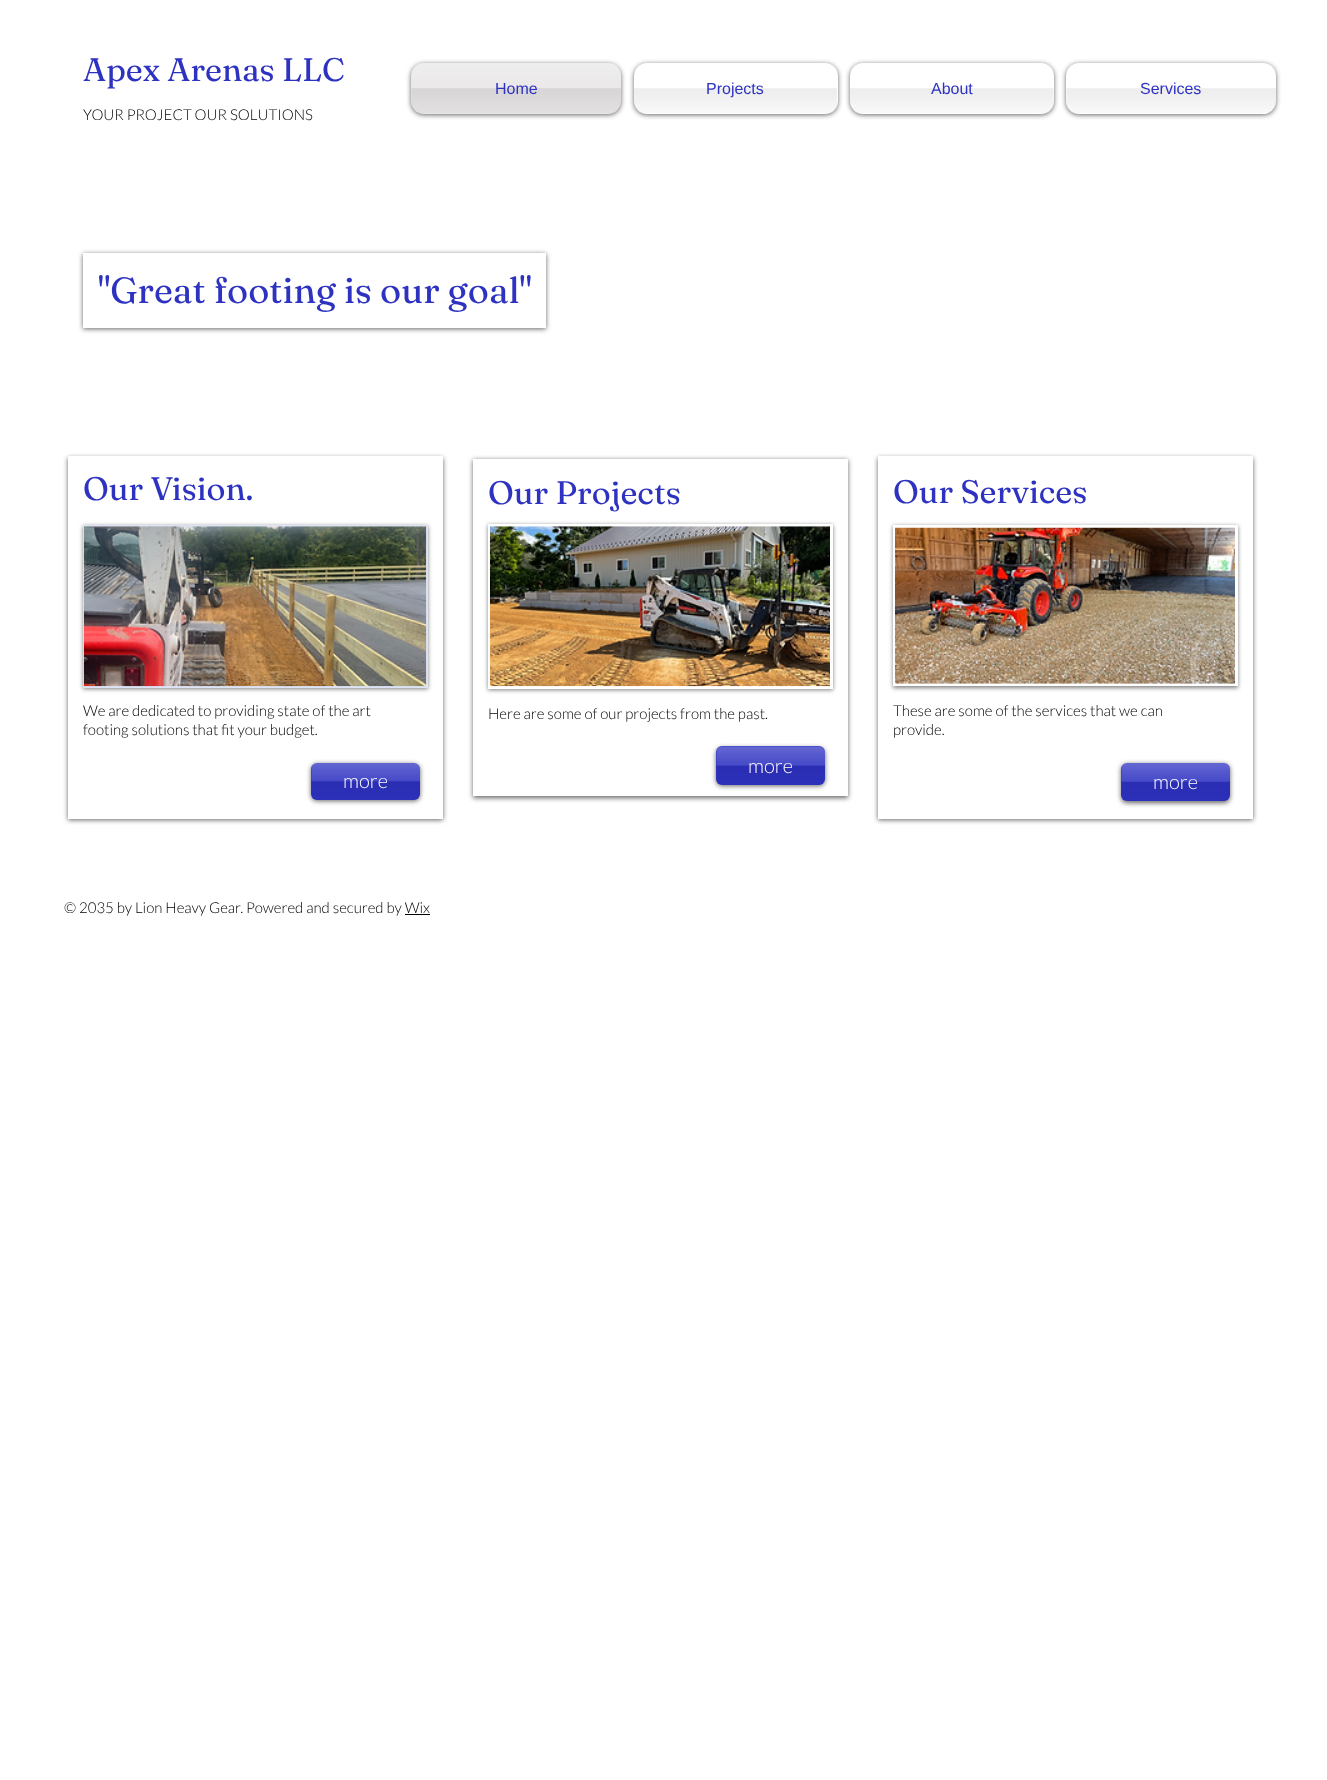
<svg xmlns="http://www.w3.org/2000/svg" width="1327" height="1780">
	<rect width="100%" height="100%" fill="#FFFFFF" />
	<text x="83" y="81" font-family="Fraunces" font-size="32.5" fill="#2E32C1">Apex Arenas LLC</text>
	<rect x="411" y="64" width="210" height="51" rx="13" fill="#000000" fill-opacity="0.6" filter="blur(2.5px)" />
	<rect x="411" y="63" width="210" height="51" rx="13" fill="#E8E6E6" />
	<image x="411" y="63" width="210" height="50" href="assets/img1.png" />
	<text x="495" y="94" font-family="Liberation Sans" font-size="16" fill="#2E32C1">Home</text>
	<rect x="634" y="64" width="204" height="51" rx="13" fill="#000000" fill-opacity="0.6" filter="blur(2.5px)" />
	<rect x="634" y="63" width="204" height="51" rx="13" fill="#FFFFFF" />
	<image x="634" y="88" width="203" height="25" href="assets/img2.png" />
	<text x="706" y="94" font-family="Liberation Sans" font-size="16" fill="#2E32C1">Projects</text>
	<rect x="850" y="64" width="204" height="51" rx="13" fill="#000000" fill-opacity="0.6" filter="blur(2.5px)" />
	<rect x="850" y="63" width="204" height="51" rx="13" fill="#FFFFFF" />
	<image x="850" y="88" width="204" height="25" href="assets/img3.png" />
	<text x="931" y="94" font-family="Liberation Sans" font-size="16" fill="#2E32C1">About</text>
	<rect x="1066" y="64" width="210" height="51" rx="13" fill="#000000" fill-opacity="0.6" filter="blur(2.5px)" />
	<rect x="1066" y="63" width="210" height="51" rx="13" fill="#FFFFFF" />
	<image x="1066" y="88" width="210" height="25" href="assets/img4.png" />
	<text x="1140" y="94" font-family="Liberation Sans" font-size="16" fill="#2E32C1">Services</text>
	<text x="83" y="120" font-family="Lato" font-size="15" font-weight="300" fill="#000000">YOUR PROJECT OUR SOLUTIONS</text>
	<rect x="83" y="254" width="463" height="75" fill="#000000" fill-opacity="0.6" filter="blur(2.5px)" />
	<rect x="83" y="253" width="463" height="75" fill="#FFFFFF" />
	<text x="98" y="303" font-family="Fraunces" font-size="36.25" fill="#2E32C1">"Great footing is our goal"</text>
	<rect x="68" y="458" width="375" height="362" fill="#000000" fill-opacity="0.6" filter="blur(2.5px)" />
	<rect x="68" y="456" width="375" height="363" fill="#FFFFFF" />
	<text x="83" y="500" font-family="Fraunces" font-size="32.5" fill="#2E32C1">Our Vision.</text>
	<rect x="83" y="526" width="345" height="163" fill="#000000" fill-opacity="0.5" filter="blur(2px)" />
	<rect x="83" y="525" width="345" height="163" fill="#DCE3F5" />
	<image x="83" y="526" width="344" height="161" href="assets/img5.png" />
	<g font-family="Lato" font-size="15" font-weight="300" fill="#000000">
		<text x="83" y="716">We are dedicated to providing state of the art</text>
		<text x="83" y="735">footing solutions that fit your budget.</text>
	</g>
	<rect x="311" y="764" width="109" height="37" rx="6" fill="#000000" fill-opacity="0.6" filter="blur(2.5px)" />
	<rect x="311" y="763" width="109" height="37" rx="6" fill="#2E32C1" />
	<image x="311" y="763" width="109" height="37" href="assets/img6.png" />
	<text x="343" y="788" font-family="Lato" font-size="20" font-weight="300" fill="#FFFFFF">more</text>
	<rect x="473" y="460" width="375" height="338" fill="#000000" fill-opacity="0.6" filter="blur(2.5px)" />
	<rect x="473" y="459" width="375" height="337" fill="#FFFFFF" />
	<text x="488" y="504" font-family="Fraunces" font-size="32.5" fill="#2E32C1">Our Projects</text>
	<rect x="488" y="525" width="345" height="165" fill="#000000" fill-opacity="0.5" filter="blur(2px)" />
	<rect x="488" y="524" width="345" height="165" fill="#FFFFFF" />
	<image x="490" y="526" width="340" height="161" href="assets/img7.png" />
	<text x="488" y="719" font-family="Lato" font-size="15" font-weight="300" fill="#000000">Here are some of our projects from the past.</text>
	<rect x="716" y="748" width="109" height="38" rx="6" fill="#000000" fill-opacity="0.6" filter="blur(2.5px)" />
	<rect x="716" y="746" width="109" height="39" rx="6" fill="#2E32C1" />
	<image x="716" y="746" width="109" height="39" href="assets/img8.png" />
	<text x="748" y="773" font-family="Lato" font-size="20" font-weight="300" fill="#FFFFFF">more</text>
	<rect x="878" y="458" width="375" height="362" fill="#000000" fill-opacity="0.6" filter="blur(2.5px)" />
	<rect x="878" y="456" width="375" height="363" fill="#FFFFFF" />
	<text x="893" y="503" font-family="Fraunces" font-size="32.5" fill="#2E32C1">Our Services</text>
	<rect x="893" y="526" width="345" height="162" fill="#000000" fill-opacity="0.5" filter="blur(2px)" />
	<rect x="893" y="525" width="345" height="161" fill="#FFFFFF" />
	<image x="895" y="527" width="340" height="157" href="assets/img9.png" />
	<g font-family="Lato" font-size="15" font-weight="300" fill="#000000">
		<text x="893" y="716">These are some of the services that we can</text>
		<text x="893" y="735">provide.</text>
	</g>
	<rect x="1121" y="764" width="109" height="39" rx="6" fill="#000000" fill-opacity="0.6" filter="blur(2.5px)" />
	<rect x="1121" y="763" width="109" height="38" rx="6" fill="#2E32C1" />
	<image x="1121" y="763" width="109" height="38" href="assets/img10.png" />
	<text x="1153" y="789" font-family="Lato" font-size="20" font-weight="300" fill="#FFFFFF">more</text>
	<text x="64" y="913" font-family="Lato" font-size="15" font-weight="300" fill="#000000">© 2035 by Lion Heavy Gear. Powered and secured by Wix</text>
	<rect x="405" y="914" width="25" height="1" fill="#000000" />
</svg>
